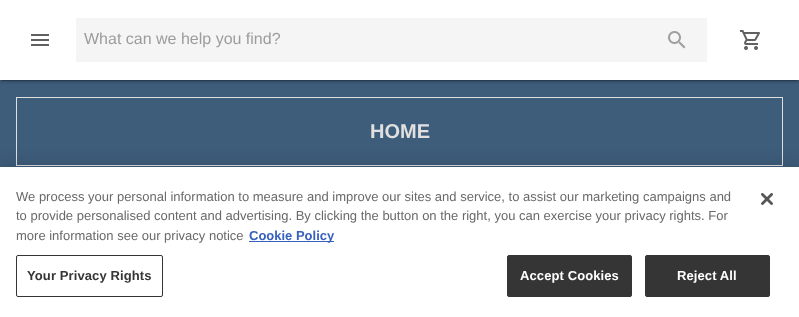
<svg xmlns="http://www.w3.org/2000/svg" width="799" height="317">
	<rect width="100%" height="100%" fill="#3E5D7B" />
	<rect x="0" y="1" width="799" height="80" fill="#000000" fill-opacity="0.12" filter="blur(2.5px)" />
	<rect x="0" y="2" width="799" height="80" fill="#000000" fill-opacity="0.14" filter="blur(1px)" />
	<rect x="2" y="5" width="795" height="76" fill="#000000" fill-opacity="0.2" filter="blur(0.5px)" />
	<rect x="0" y="0" width="799" height="80" fill="#FFFFFF" />
	<image x="31" y="34" width="18" height="12" href="assets/img1.png" />
	<rect x="76" y="18" width="631" height="44" fill="#F5F5F5" />
	<text x="84" y="44" font-family="Liberation Sans" font-size="16" fill="#9C9C9C">What can we help you find?</text>
	<image x="668" y="31" width="18" height="18" href="assets/img2.png" />
	<image x="740" y="30" width="20" height="20" href="assets/img3.png" />
	<rect x="16.5" y="97.5" width="766" height="68" fill="none" stroke="#E0E0E0" />
	<text x="370" y="138" font-family="Liberation Sans" font-size="20" font-weight="700" fill="#E0E0E0">HOME</text>
	<rect x="0" y="167" width="799" height="150" fill="#000000" fill-opacity="0.2" filter="blur(9px)" />
	<rect x="0" y="167" width="799" height="150" fill="#FFFFFF" />
	<g font-family="Liberation Sans" font-size="13" fill="#696969">
		<text x="16" y="201">We process your personal information to measure and improve our sites and service, to assist our marketing campaigns and</text>
		<text x="16" y="220">to provide personalised content and advertising. By clicking the button on the right, you can exercise your privacy rights. For</text>
		<text x="16" y="240">more information see our privacy notice</text>
	</g>
	<rect x="249" y="241" width="85" height="1" fill="#3860BE" />
	<text x="249" y="240" font-family="Liberation Sans" font-size="13" font-weight="700" fill="#3860BE">Cookie Policy</text>
	<rect x="16.5" y="255.5" width="146" height="41" rx="1.5" fill="none" stroke="#353535" />
	<text x="27" y="280" font-family="Liberation Sans" font-size="13" font-weight="700" letter-spacing="0.1" fill="#353535">Your Privacy Rights</text>
	<rect x="507.5" y="255.5" width="124" height="41" rx="1.5" fill="#353535" stroke="#353535" />
	<text x="520" y="280" font-family="Liberation Sans" font-size="13" font-weight="700" letter-spacing="0.1" fill="#FFFFFF">Accept Cookies</text>
	<rect x="645.5" y="255.5" width="124" height="41" rx="1.5" fill="#353535" stroke="#353535" />
	<text x="677" y="280" font-family="Liberation Sans" font-size="13" font-weight="700" letter-spacing="0.1" fill="#FFFFFF">Reject All</text>
	<image x="761" y="193" width="12" height="12" href="assets/img4.png" />
</svg>
